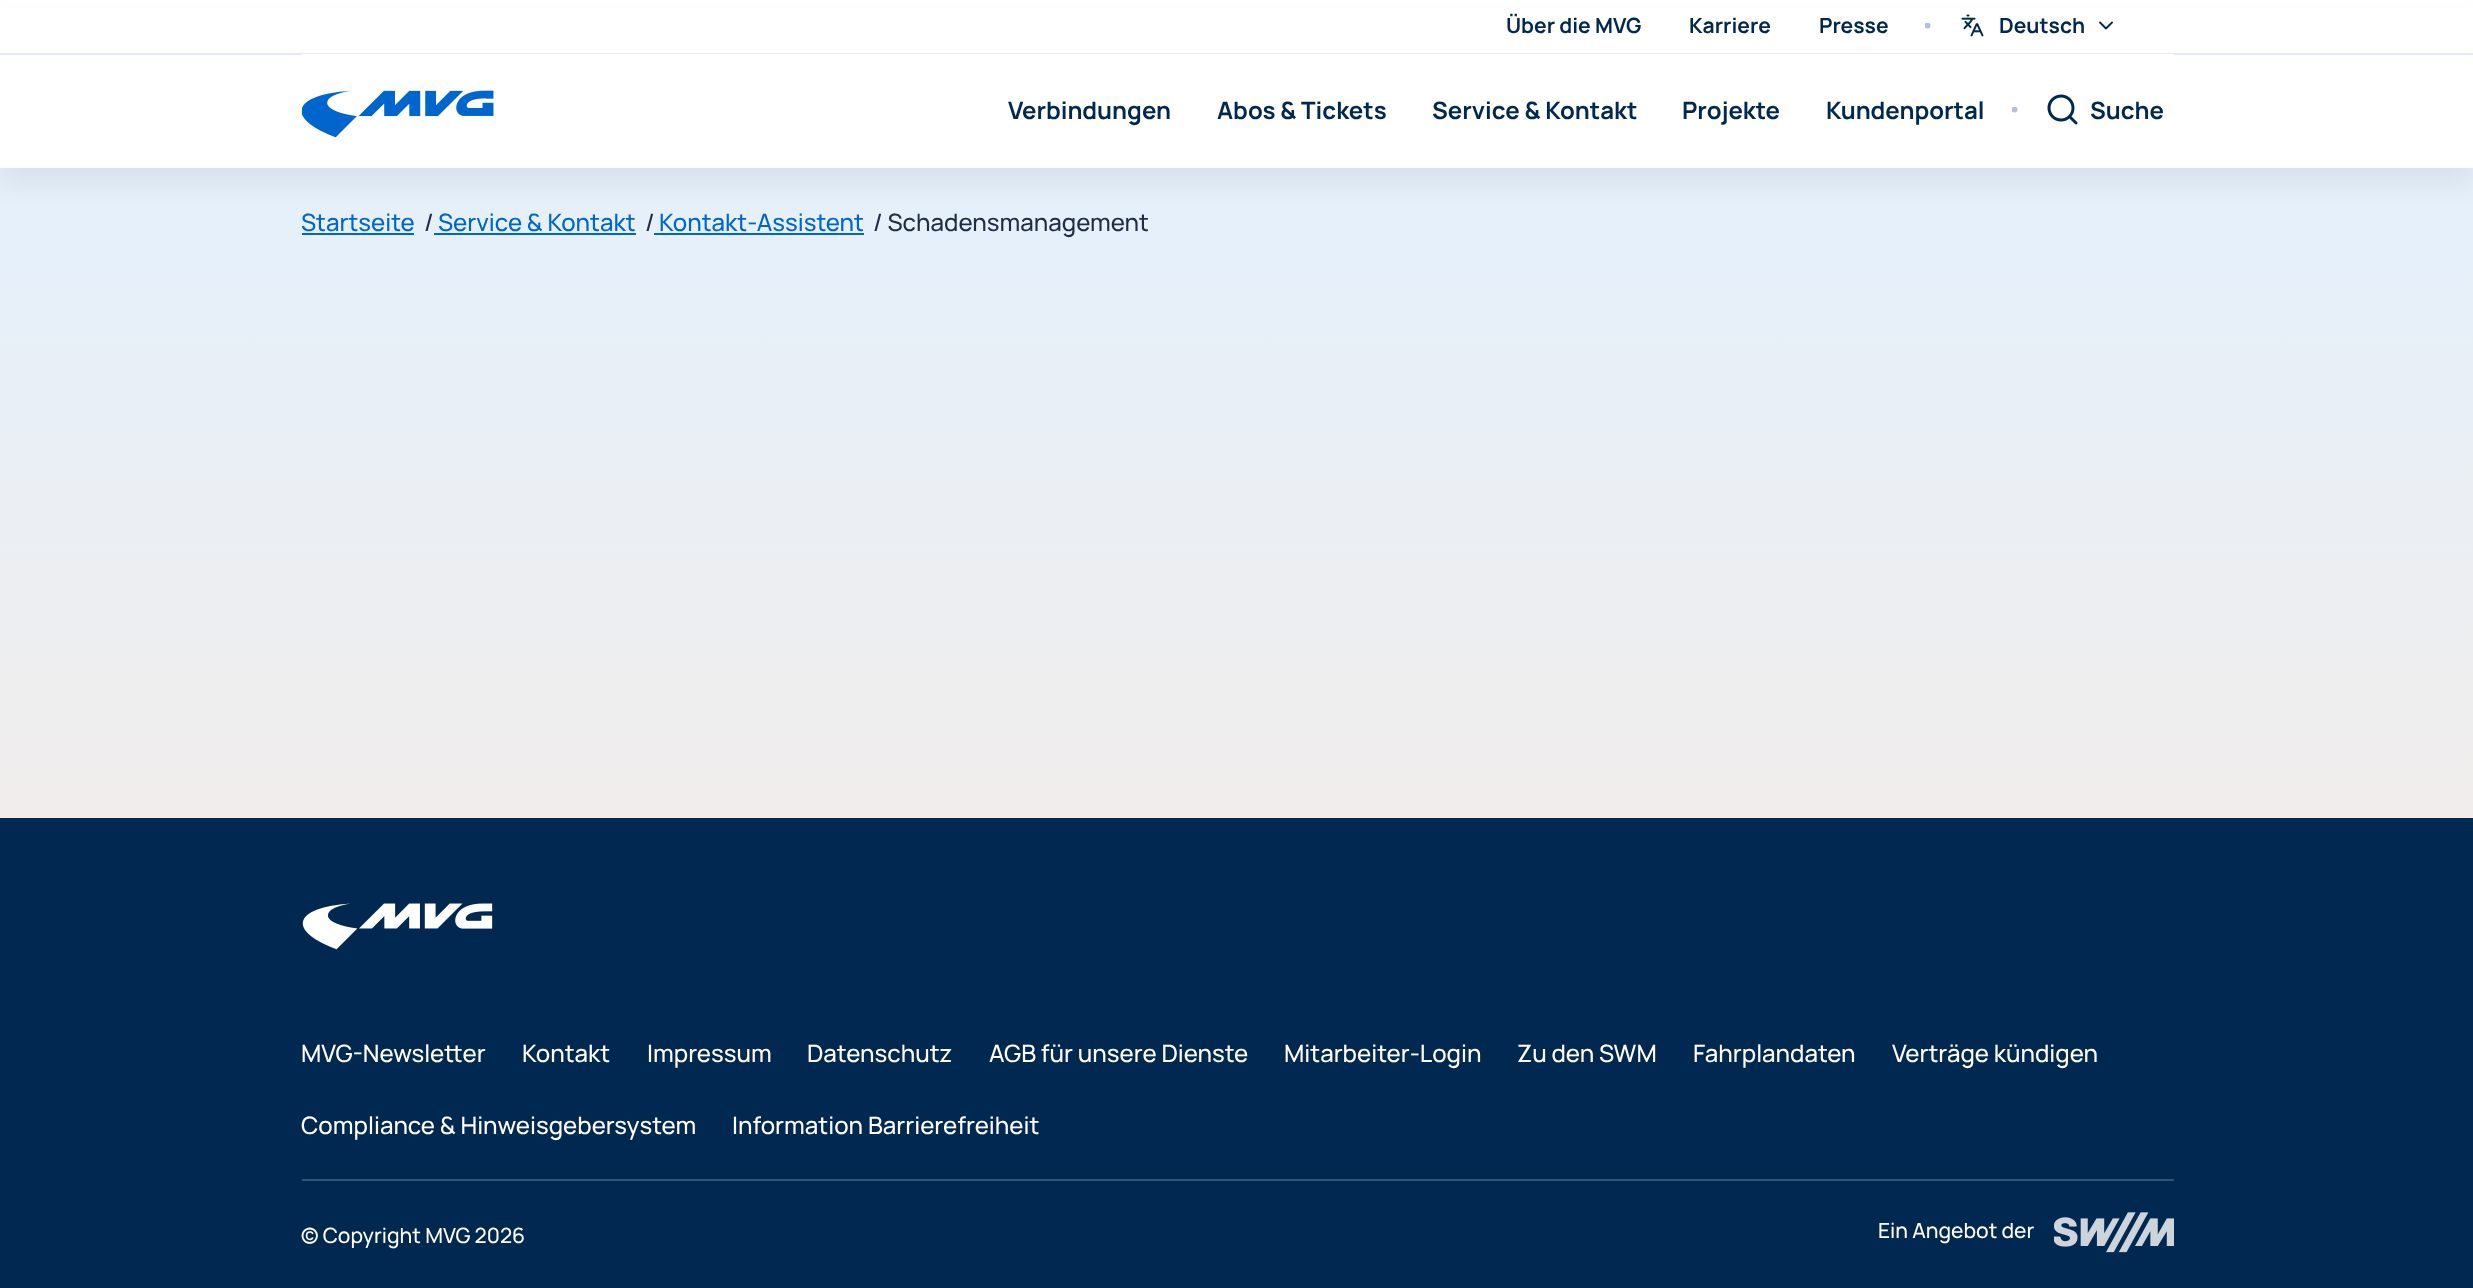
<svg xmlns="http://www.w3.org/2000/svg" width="2473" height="1288">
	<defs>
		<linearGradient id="g1" gradientUnits="userSpaceOnUse" x1="1237" y1="0" x2="1237" y2="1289"><stop offset="0.2" stop-color="#E6F0FA" /><stop offset="1" stop-color="#FAEBE0" /></linearGradient>
		<clipPath id="clip1"><rect x="1925" y="23" width="6" height="6" /></clipPath>
		<clipPath id="clip2"><rect x="2012" y="107" width="6" height="6" /></clipPath>
	</defs>
	<rect width="100%" height="100%" fill="#FFFFFF" />
	<rect x="0" y="168" width="2473" height="650" fill="url(#g1)" />
	<rect x="0" y="18" width="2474" height="168" fill="#000000" fill-opacity="0.05" filter="blur(12px)" />
	<rect x="0" y="8" width="2473" height="160" fill="#FFFFFF" />
	<g font-family="'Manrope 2'" font-size="21" font-weight="200" fill="#002850">
		<text x="1506" y="33">Über die MVG</text>
		<text x="1689" y="33">Karriere</text>
		<text x="1819" y="33">Presse</text>
	</g>
	<g clip-path="url(#clip1)">
		<circle cx="1927.5" cy="25.5" r="3" fill="#B5C0DA" />
	</g>
	<image x="1961" y="14" width="23" height="23" href="assets/img1.png" />
	<text x="1999" y="33" font-family="'Manrope 2'" font-size="21" font-weight="200" fill="#002850">Deutsch</text>
	<image x="2099" y="21" width="14" height="9" href="assets/img2.png" />
	<rect x="0" y="53" width="2473" height="2" fill="#E5E8FF" />
	<rect x="302" y="54" width="1872" height="1" fill="#FFFFFF" />
	<image x="302" y="90" width="192" height="48" href="assets/img3.png" />
	<g font-family="'Manrope 2'" font-size="24" font-weight="200" fill="#002850">
		<text x="1008" y="119">Verbindungen</text>
		<text x="1217" y="119">Abos &amp; Tickets</text>
		<text x="1432" y="119">Service &amp; Kontakt</text>
		<text x="1682" y="119">Projekte</text>
		<text x="1826" y="119">Kundenportal</text>
	</g>
	<g clip-path="url(#clip2)">
		<circle cx="2014.5" cy="109.5" r="3" fill="#B5C0DA" />
	</g>
	<image x="2047" y="94" width="31" height="31" href="assets/img4.png" />
	<text x="2090" y="119" font-family="'Manrope 2'" font-size="24" font-weight="200" fill="#002850">Suche</text>
	<text x="301" y="231" font-family="Manrope" font-size="24" font-weight="200" fill="#0065CC">Startseite</text>
	<rect x="302" y="233" width="112" height="2" fill="#0065CC" />
	<text x="424" y="231" font-family="Manrope" font-size="24" font-weight="200" fill="#1F2B47">/</text>
	<text x="438" y="231" font-family="Manrope" font-size="24" font-weight="200" fill="#0065CC">Service &amp; Kontakt</text>
	<rect x="434" y="233" width="202" height="2" fill="#0065CC" />
	<text x="645" y="231" font-family="Manrope" font-size="24" font-weight="200" fill="#1F2B47">/</text>
	<text x="659" y="231" font-family="Manrope" font-size="24" font-weight="200" fill="#0065CC">Kontakt-Assistent</text>
	<rect x="654" y="233" width="210" height="2" fill="#0065CC" />
	<text x="873" y="231" font-family="Manrope" font-size="24" font-weight="200" fill="#1F2B47">/ Schadensmanagement</text>
	<rect x="0" y="818" width="2473" height="470" fill="#002850" />
	<image x="302" y="903" width="191" height="47" href="assets/img5.png" />
	<g font-family="Manrope" font-size="24" font-weight="200" fill="#FFFFFF">
		<text x="301" y="1062">MVG-Newsletter</text>
		<text x="522" y="1062">Kontakt</text>
		<text x="647" y="1062">Impressum</text>
		<text x="807" y="1062">Datenschutz</text>
		<text x="989" y="1062">AGB für unsere Dienste</text>
		<text x="1284" y="1062">Mitarbeiter-Login</text>
		<text x="1517" y="1062">Zu den SWM</text>
		<text x="1693" y="1062">Fahrplandaten</text>
		<text x="1892" y="1062">Verträge kündigen</text>
		<text x="301" y="1134">Compliance &amp; Hinweisgebersystem</text>
		<text x="732" y="1134">Information Barrierefreiheit</text>
	</g>
	<rect x="302" y="1179" width="1872" height="2" fill="#335373" />
	<g font-family="Manrope" font-size="21" font-weight="200" fill="#FFFFFF">
		<text x="301" y="1243">© Copyright MVG 2026</text>
		<text x="1878" y="1238">Ein Angebot der</text>
	</g>
	<image x="2054" y="1212" width="120" height="41" href="assets/img6.png" />
</svg>
